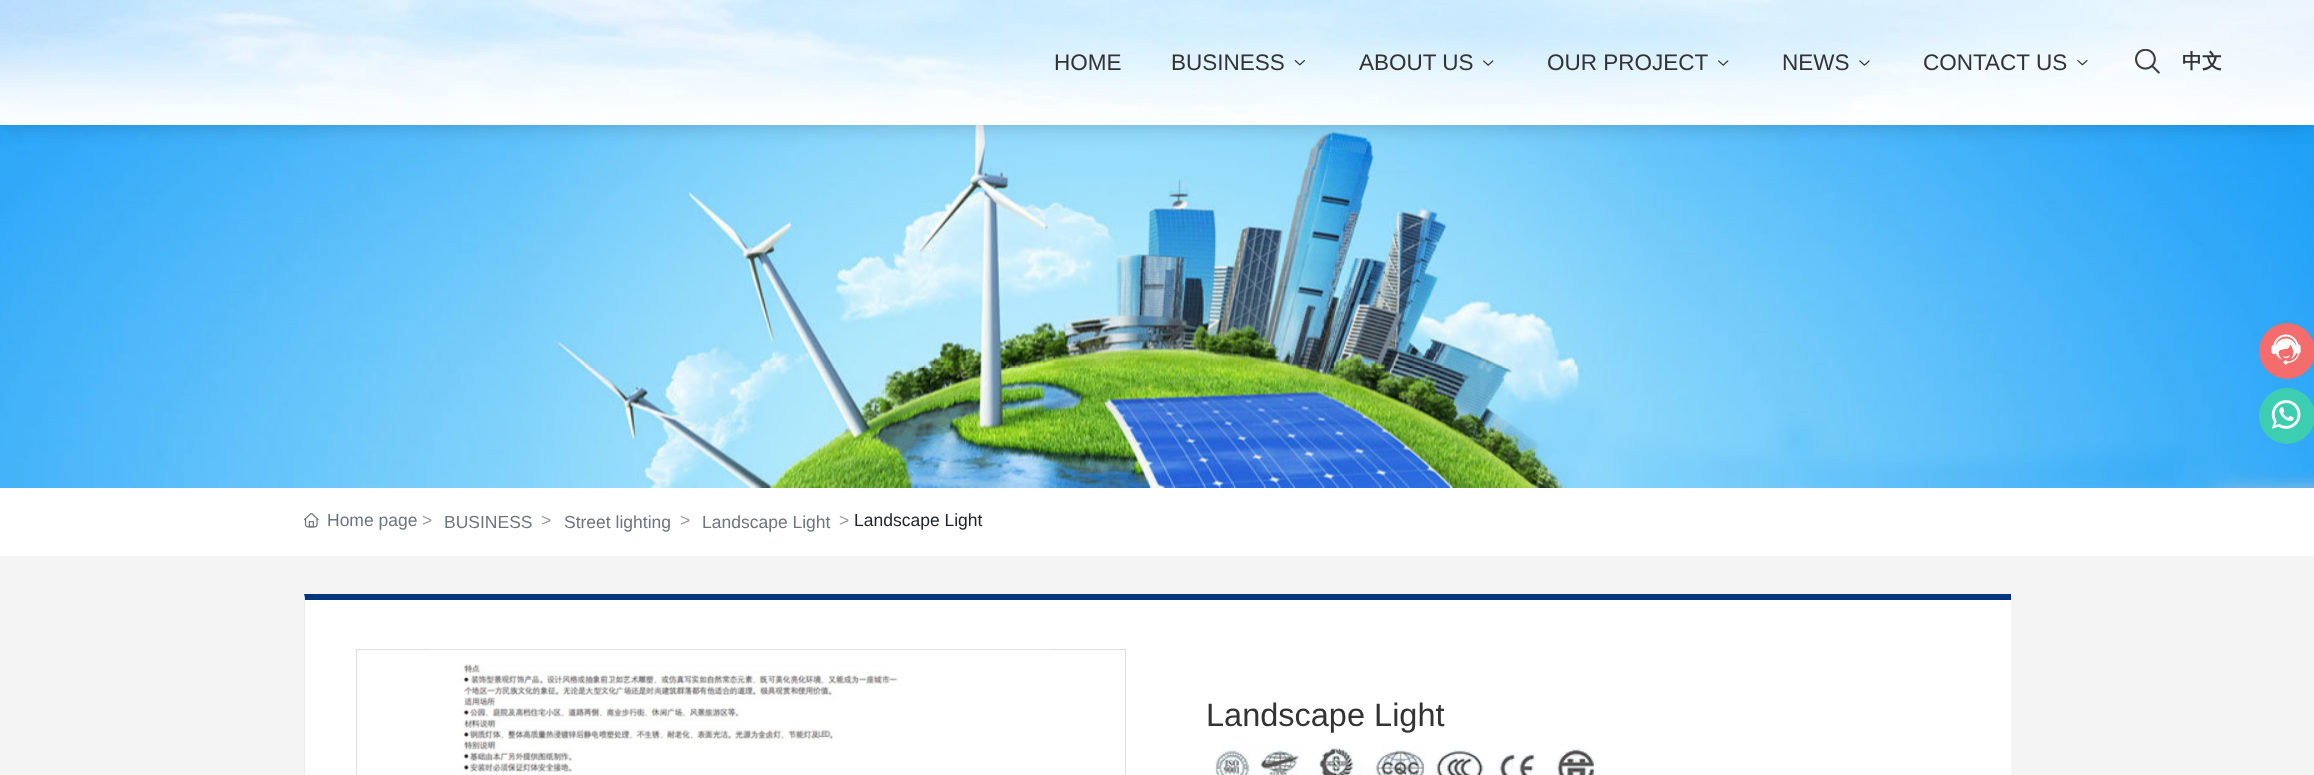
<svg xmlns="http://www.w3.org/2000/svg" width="2314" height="775">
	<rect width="100%" height="100%" fill="#FFFFFF" />
	<image x="0" y="125" width="2314" height="363" href="assets/img8.png" />
	<rect x="0" y="0" width="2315" height="125" fill="#000000" fill-opacity="0.2" filter="blur(9.5px)" />
	<image x="0" y="0" width="2314" height="125" href="assets/img1.png" />
	<g font-family="Liberation Sans" font-size="22.5" fill="#333333">
		<text x="1054" y="70">HOME</text>
		<text x="1171" y="70">BUSINESS</text>
	</g>
	<image x="1294" y="60" width="11" height="6" href="assets/img2.png" />
	<text x="1359" y="70" font-family="Liberation Sans" font-size="22.5" fill="#333333">ABOUT US</text>
	<image x="1483" y="60" width="11" height="6" href="assets/img3.png" />
	<text x="1547" y="70" font-family="Liberation Sans" font-size="22.5" fill="#333333">OUR PROJECT</text>
	<image x="1718" y="60" width="11" height="6" href="assets/img4.png" />
	<text x="1782" y="70" font-family="Liberation Sans" font-size="22.5" fill="#333333">NEWS</text>
	<image x="1859" y="60" width="11" height="6" href="assets/img5.png" />
	<text x="1923" y="70" font-family="Liberation Sans" font-size="22.5" fill="#333333">CONTACT US</text>
	<image x="2077" y="60" width="11" height="6" href="assets/img6.png" />
	<image x="2135" y="49" width="25" height="25" href="assets/img7.png" />
	<text x="2182" y="68" font-family="WenQuanYi Zen Hei" font-size="20" font-weight="700" fill="#333333">中文</text>
	<image x="304" y="513" width="15" height="15" href="assets/img9.png" />
	<text x="327" y="526" font-family="Liberation Sans" font-size="17.5" fill="#6C757D">Home page</text>
	<text x="422" y="526" font-family="Liberation Sans" font-size="17.5" fill="#999999">&gt;</text>
	<text x="444" y="528" font-family="Liberation Sans" font-size="17.5" fill="#6C757D">BUSINESS</text>
	<text x="541" y="526" font-family="Liberation Sans" font-size="17.5" fill="#999999">&gt;</text>
	<text x="564" y="528" font-family="Liberation Sans" font-size="17.5" fill="#6C757D">Street lighting</text>
	<text x="680" y="526" font-family="Liberation Sans" font-size="17.5" fill="#999999">&gt;</text>
	<text x="702" y="528" font-family="Liberation Sans" font-size="17.5" fill="#6C757D">Landscape Light</text>
	<text x="839" y="526" font-family="Liberation Sans" font-size="17.5" fill="#999999">&gt;</text>
	<text x="854" y="526" font-family="Liberation Sans" font-size="17.5" fill="#212529">Landscape Light</text>
	<rect x="0" y="556" width="2314" height="219" fill="#F4F4F4" />
	<rect x="304" y="594" width="1707" height="181" fill="#FFFFFF" />
	<path d="M304 594H2011V600H305Z" fill="#01357E" />
	<path d="M304 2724V594L305 600V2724Z" fill="#ECECEC" />
	<rect x="356.5" y="649.5" width="769" height="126" fill="none" stroke="#DDDDDD" />
	<image x="429" y="649" width="624" height="123" href="assets/img10.png" />
	<text x="1206" y="726" font-family="Liberation Sans" font-size="32.5" fill="#333333">Landscape Light</text>
	<image x="1214" y="745" width="382" height="30" href="assets/img11.png" />
	<circle cx="2287" cy="351" r="28" fill="#F56C6C" />
	<image x="2271" y="334" width="30" height="31" href="assets/img12.png" />
	<circle cx="2287" cy="416" r="28" fill="#3DCEB2" />
	<image x="2271" y="400" width="30" height="29" href="assets/img13.png" />
</svg>
